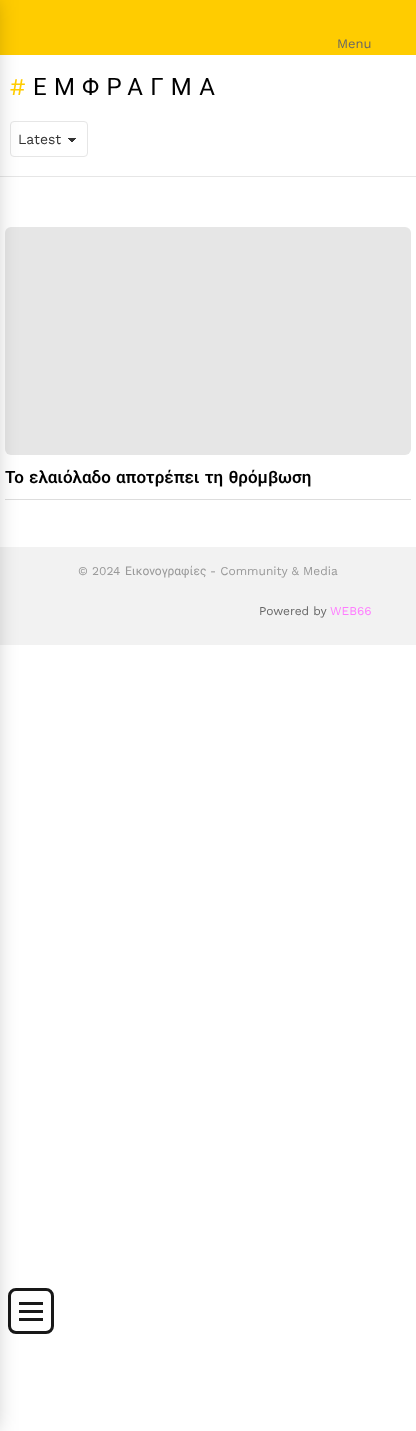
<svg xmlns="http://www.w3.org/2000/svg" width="416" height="1431">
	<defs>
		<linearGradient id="g1" gradientUnits="userSpaceOnUse" x1="72" y1="138" x2="77" y2="142"><stop offset="0.5" stop-color="#333333" /><stop offset="0.5" stop-color="#FFFFFF" /></linearGradient>
		<linearGradient id="g2" gradientUnits="userSpaceOnUse" x1="67" y1="142" x2="72" y2="138"><stop offset="0.5" stop-color="#FFFFFF" /><stop offset="0.5" stop-color="#333333" /></linearGradient>
	</defs>
	<rect width="100%" height="100%" fill="#FFFFFF" />
	<rect x="0" y="0" width="416" height="55" fill="#FFCC00" />
	<rect x="72" y="138" width="5" height="4" fill="url(#g1)" />
	<rect x="67" y="138" width="5" height="4" fill="url(#g2)" />
	<rect x="10.5" y="121.5" width="77" height="35" rx="3.5" fill="none" stroke="#E6E6E6" />
	<rect x="0" y="176" width="416" height="1" fill="#E6E6E6" />
	<rect x="5" y="227" width="406" height="228" rx="6" fill="#E6E6E6" />
	<rect x="5" y="499" width="406" height="1" fill="#DDDDDD" />
	<rect x="0" y="547" width="416" height="98" fill="#F2F2F2" />
	<rect x="19" y="1302" width="24" height="3" fill="#181818" />
	<rect x="19" y="1318" width="24" height="3" fill="#181818" />
	<rect x="9.5" y="1289.5" width="43" height="43" rx="6.5" fill="none" stroke="#181818" stroke-width="3" />
	<rect x="19" y="1310" width="24" height="3" fill="#181818" />
	<rect x="-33" y="0" width="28" height="1431" fill="#000000" fill-opacity="0.25" filter="blur(11px)" />
	<text x="337" y="48" font-family="Work Sans" font-size="13" fill="#666666">Menu</text>
	<text x="10" y="95" font-family="Work Sans" font-size="24" letter-spacing="7.25" fill="#FFCC00">#</text>
	<text x="33" y="95" font-family="Roboto" font-size="24" letter-spacing="7.25" fill="#000000">ΕΜΦΡΑΓΜΑ</text>
	<text x="18" y="144" font-family="Work Sans" font-size="14" fill="#333333">Latest</text>
	<text x="5" y="483" word-spacing="1" font-family="Roboto" font-size="17" font-weight="600" fill="#000000">Το ελαιόλαδο αποτρέπει τη θρόμβωση</text>
	<text x="78" y="575" font-family="Work Sans" font-size="12" fill="#999999">© 2024</text>
	<text x="125" y="575" font-family="Roboto" font-size="12" fill="#999999">Εικονογραφίες</text>
	<text x="210" y="575" font-family="Work Sans" font-size="12" fill="#999999">- Community &amp; Media</text>
	<text x="259" y="615" font-family="Work Sans" font-size="12" fill="#666666">Powered by</text>
	<text x="330" y="615" font-family="Work Sans" font-size="12" fill="#FF7DFF">WEB66</text>
</svg>
